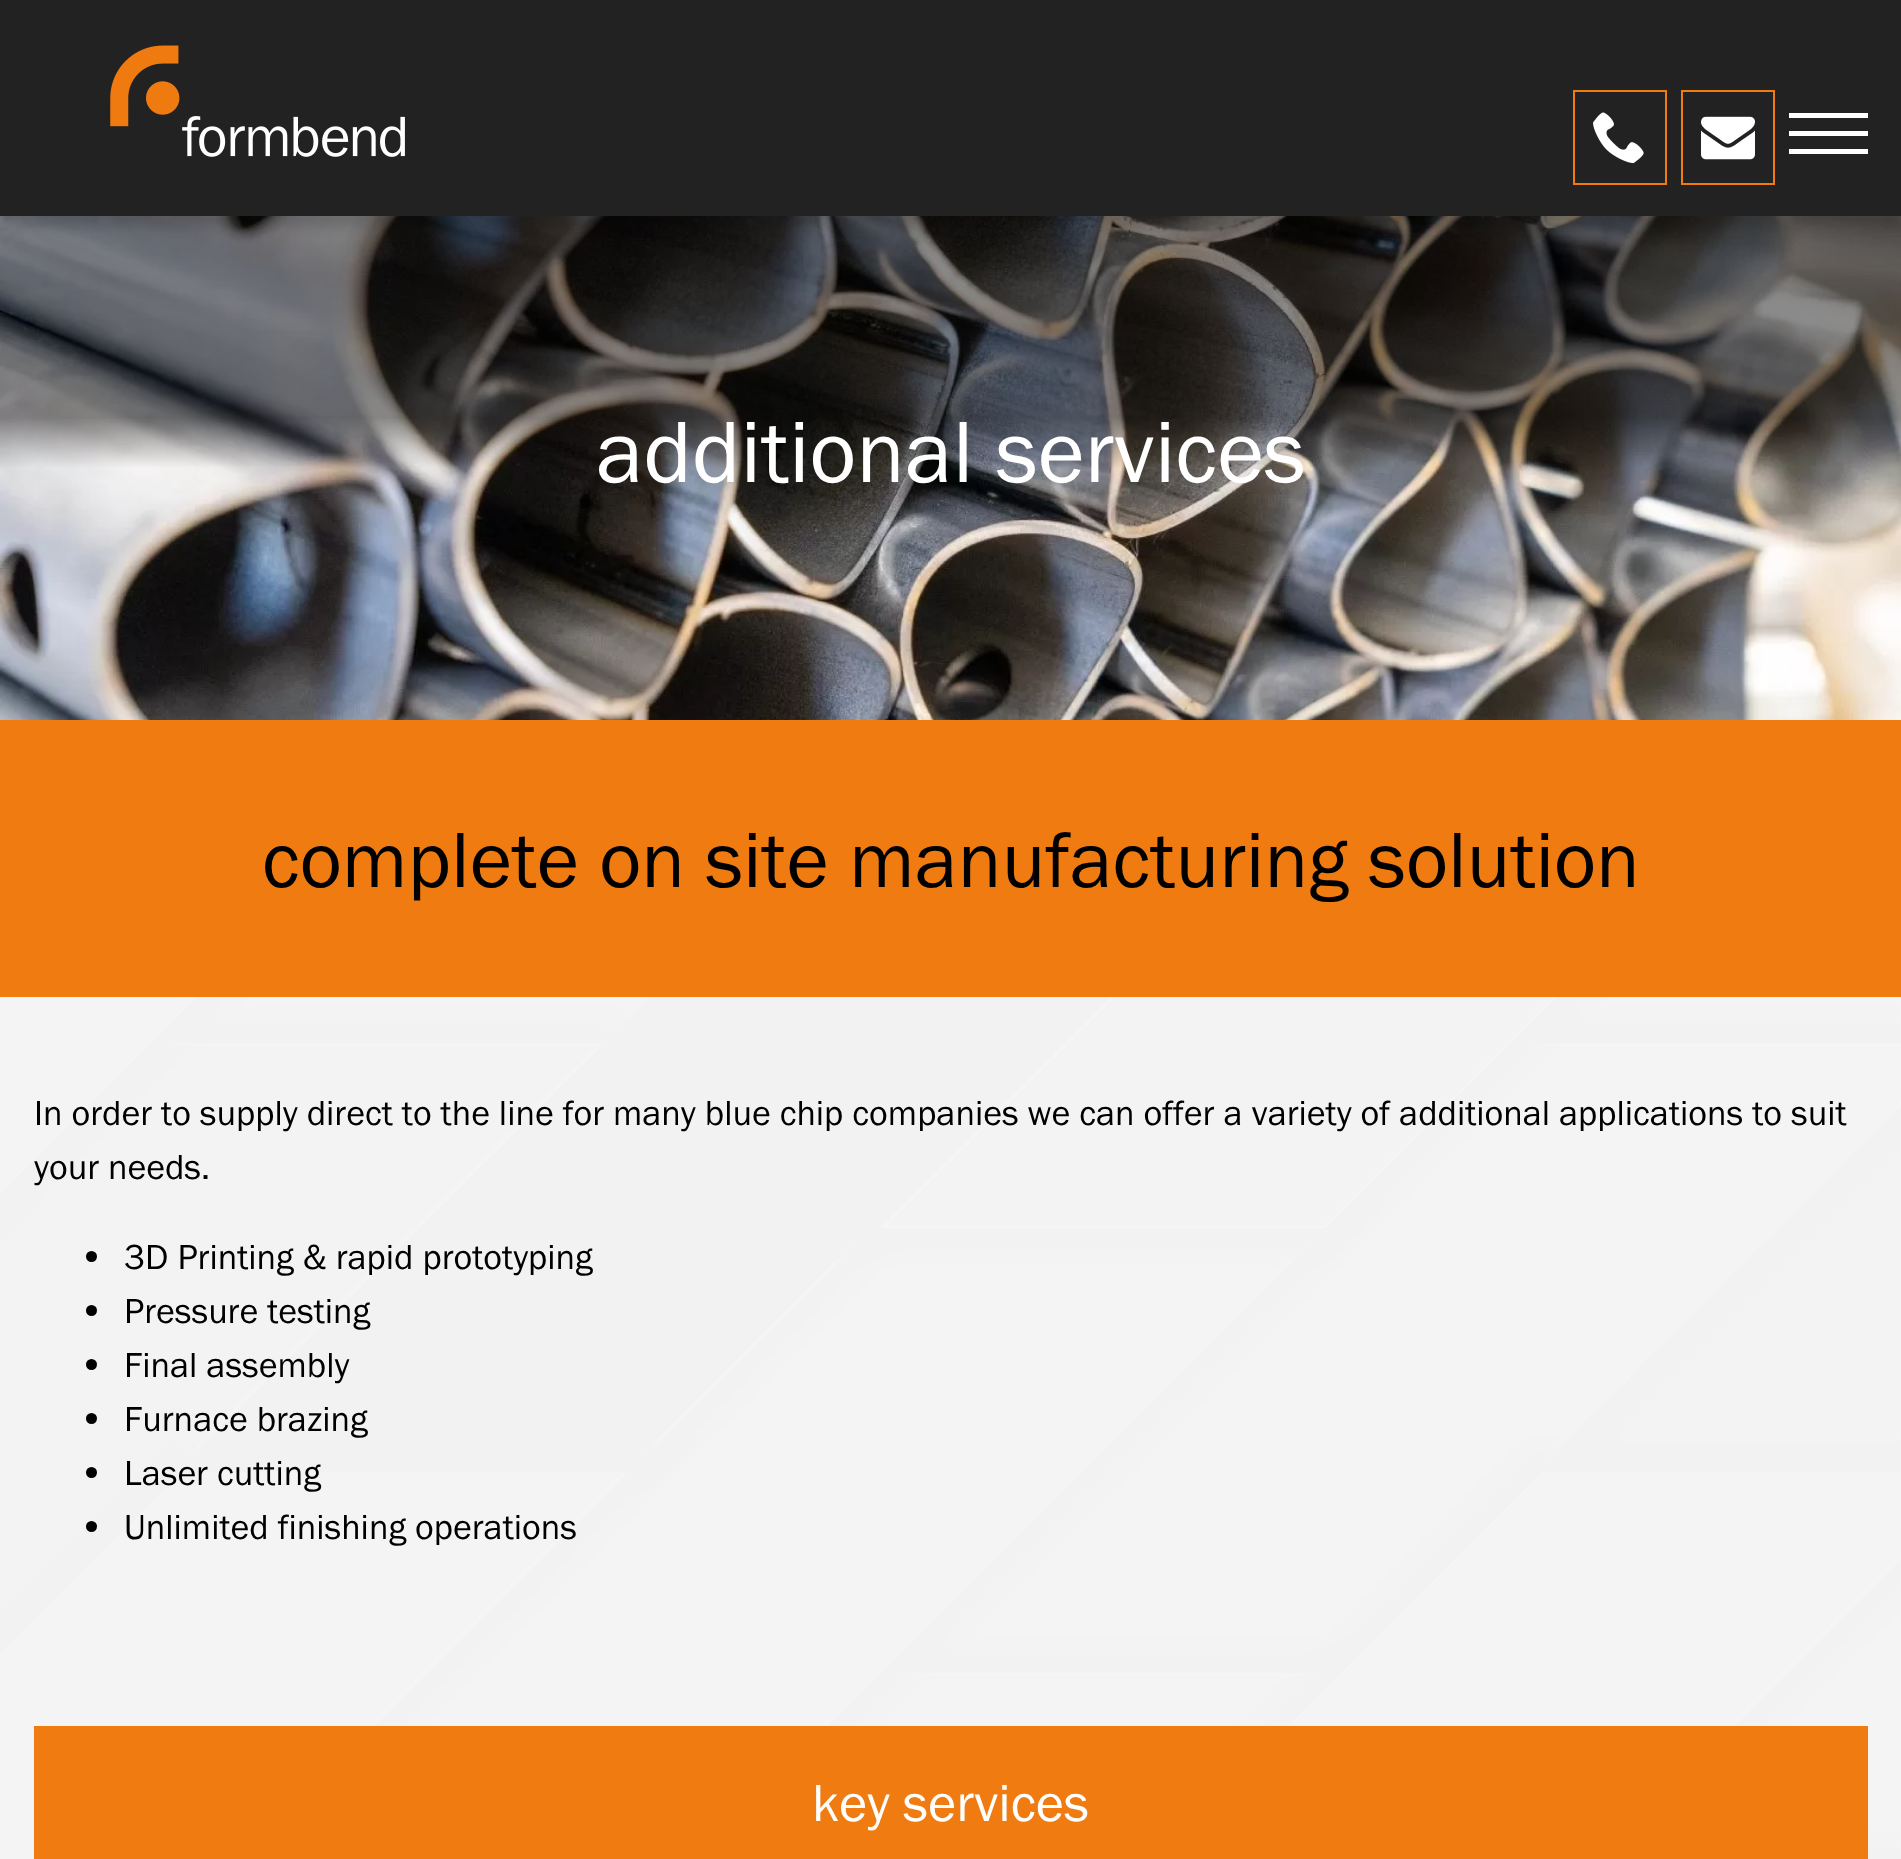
<svg xmlns="http://www.w3.org/2000/svg" width="1901" height="1859">
	<rect width="100%" height="100%" fill="#FFFFFF" />
	<image x="0" y="997" width="1901" height="862" href="assets/img1.png" />
	<image x="0" y="216" width="1901" height="504" href="assets/img5.png" />
	<rect x="0" y="11" width="1901" height="216" fill="#000000" fill-opacity="0.15" filter="blur(5.5px)" />
	<rect x="0" y="0" width="1901" height="216" fill="#222222" />
	<image x="110" y="45" width="295" height="112" href="assets/img2.png" />
	<rect x="1574" y="91" width="92" height="93" fill="none" stroke="#EF7B11" stroke-width="2" />
	<image x="1593" y="112" width="51" height="52" href="assets/img3.png" />
	<rect x="1682" y="91" width="92" height="93" fill="none" stroke="#EF7B11" stroke-width="2" />
	<image x="1701" y="116" width="54" height="44" href="assets/img4.png" />
	<rect x="1789" y="113" width="79" height="5" fill="#FFFFFF" />
	<rect x="1789" y="131" width="79" height="5" fill="#FFFFFF" />
	<rect x="1789" y="149" width="79" height="5" fill="#FFFFFF" />
	<text x="596" y="482" font-family="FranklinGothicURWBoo" font-size="90" fill="#FFFFFF">additional services</text>
	<rect x="0" y="720" width="1901" height="277" fill="#EF7B11" />
	<text x="262" y="887" font-family="FranklinGothicURWBoo" font-size="81" fill="#000000">complete on site manufacturing solution</text>
	<rect x="0" y="997" width="1901" height="862" fill="#FFFFFF" fill-opacity="0.95" />
	<g font-family="FranklinGothicURWBoo" font-size="36" fill="#000000">
		<text x="34" y="1125">In order to supply direct to the line for many blue chip companies we can offer a variety of additional applications to suit</text>
		<text x="34" y="1179">your needs.</text>
	</g>
	<circle cx="91.5" cy="1256.5" r="5.5" fill="#000000" />
	<text x="124" y="1269" font-family="FranklinGothicURWBoo" font-size="36" fill="#000000">3D Printing &amp; rapid prototyping</text>
	<circle cx="91.5" cy="1310.5" r="5.5" fill="#000000" />
	<text x="124" y="1323" font-family="FranklinGothicURWBoo" font-size="36" fill="#000000">Pressure testing</text>
	<circle cx="91.5" cy="1364.5" r="5.5" fill="#000000" />
	<text x="124" y="1377" font-family="FranklinGothicURWBoo" font-size="36" fill="#000000">Final assembly</text>
	<circle cx="91.5" cy="1418.5" r="5.5" fill="#000000" />
	<text x="124" y="1431" font-family="FranklinGothicURWBoo" font-size="36" fill="#000000">Furnace brazing</text>
	<circle cx="91.5" cy="1472.5" r="5.5" fill="#000000" />
	<text x="124" y="1485" font-family="FranklinGothicURWBoo" font-size="36" fill="#000000">Laser cutting</text>
	<circle cx="91.5" cy="1526.5" r="5.5" fill="#000000" />
	<text x="124" y="1539" font-family="FranklinGothicURWBoo" font-size="36" fill="#000000">Unlimited finishing operations</text>
	<rect x="34" y="1726" width="1834" height="133" fill="#EF7B11" />
	<text x="812" y="1821" font-family="FranklinGothicURWBoo" font-size="54" fill="#FFFFFF">key services</text>
</svg>
